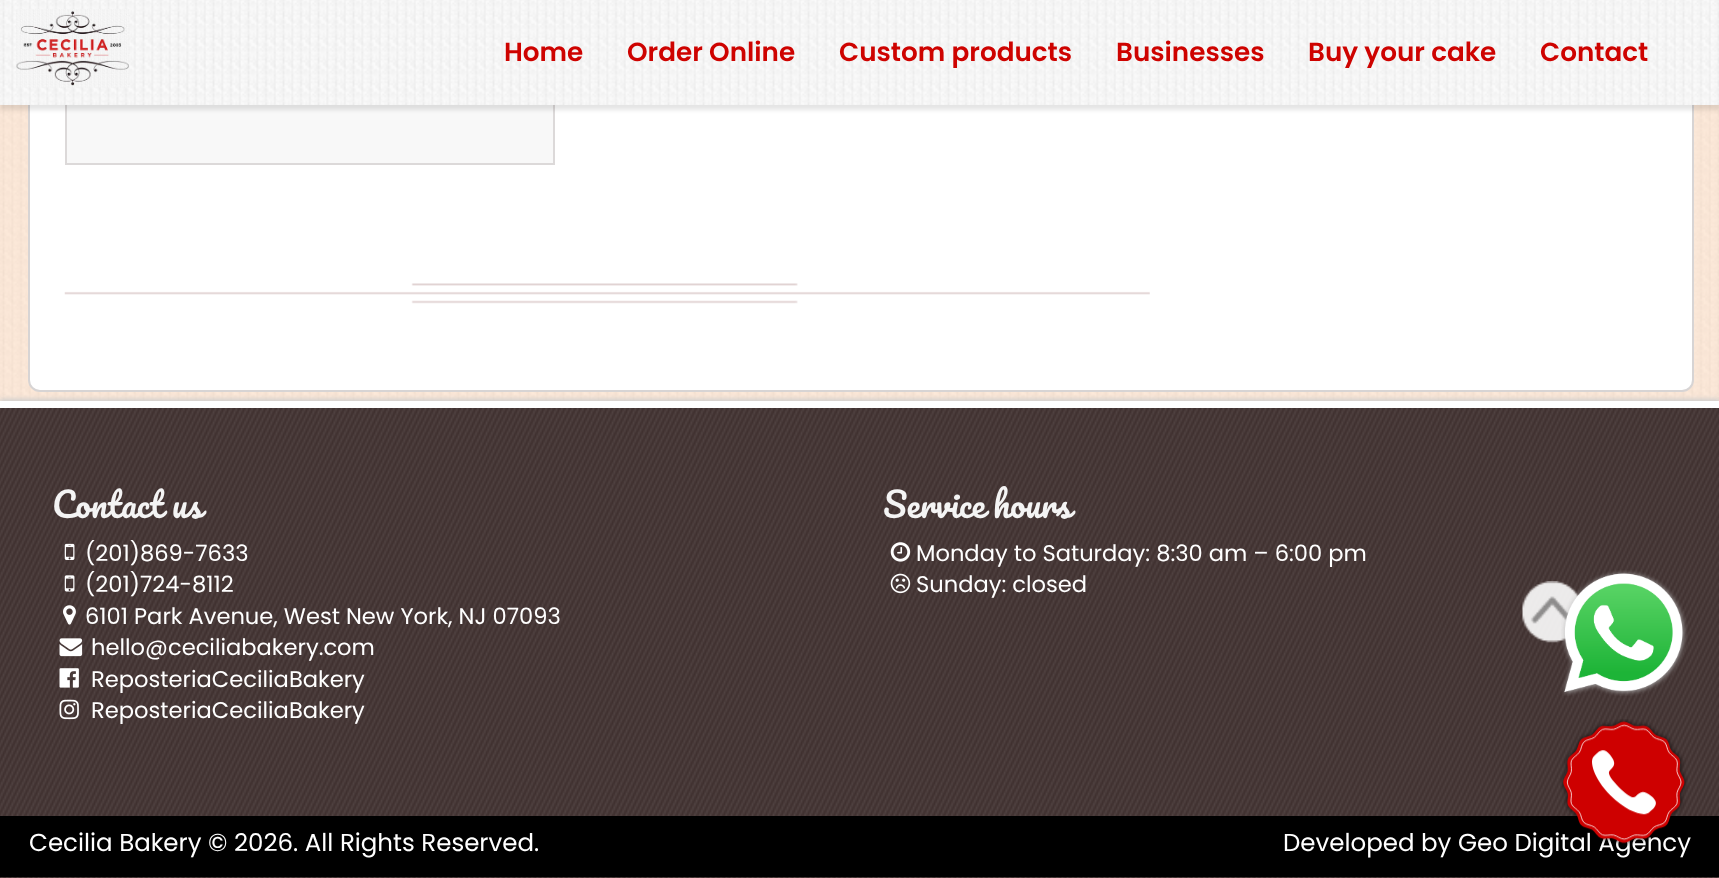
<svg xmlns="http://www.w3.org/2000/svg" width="1719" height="878">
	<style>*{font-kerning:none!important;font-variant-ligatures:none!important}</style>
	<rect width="100%" height="100%" fill="#FFFFFF" />
	<image x="0" y="105" width="1719" height="296" href="assets/img1.png" />
	<rect x="0" y="399" width="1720" height="478" fill="#CDCDCD" filter="blur(2.5px)" />
	<rect x="29" y="-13" width="1664" height="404" rx="11" fill="#FFFFFF" stroke="#D7D4D4" stroke-width="2" />
	<image x="64" y="283" width="1086" height="21" href="assets/img2.png" />
	<rect x="67" y="105" width="486" height="58" fill="#F8F8F8" />
	<rect x="66" y="-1" width="488" height="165" fill="none" stroke="#DCD9D9" stroke-width="2" />
	<rect x="0" y="5" width="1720" height="105" fill="#000000" fill-opacity="0.1" filter="blur(2px)" />
	<image x="0" y="0" width="1719" height="105" href="assets/img3.png" />
	<image x="16" y="9" width="114" height="79" href="assets/img4.png" />
	<g font-family="Poppins" font-size="26.25" font-weight="600" fill="#CE0300">
		<text x="504" y="61">Home</text>
		<text x="627" y="61">Order Online</text>
		<text x="839" y="61">Custom products</text>
		<text x="1116" y="61">Businesses</text>
		<text x="1308" y="61">Buy your cake</text>
		<text x="1540" y="61">Contact</text>
	</g>
	<rect x="0" y="408" width="1719" height="470" fill="#403130" />
	<image x="0" y="408" width="1719" height="470" href="assets/img5.png" />
	<rect x="0" y="401" width="1719" height="7" fill="#FFFFFF" />
	<text x="52" y="518" font-family="Pacifico" font-size="34" fill="#F4F4F4">Contact us</text>
	<image x="64" y="543" width="11" height="17" href="assets/img6.png" />
	<text x="85" y="561" font-family="Poppins" font-size="22.6" fill="#FFFFFF">(201)869-7633</text>
	<image x="64" y="575" width="11" height="17" href="assets/img7.png" />
	<text x="85" y="592" font-family="Poppins" font-size="22.6" fill="#FFFFFF">(201)724-8112</text>
	<image x="63" y="605" width="13" height="20" href="assets/img8.png" />
	<text x="85" y="624" font-family="Poppins" font-size="22.6" fill="#FFFFFF">6101 Park Avenue, West New York, NJ 07093</text>
	<image x="59" y="638" width="24" height="19" href="assets/img9.png" />
	<text x="91" y="655" font-family="Poppins" font-size="22.6" fill="#FFFFFF">hello@ceciliabakery.com</text>
	<image x="59" y="668" width="20" height="20" href="assets/img10.png" />
	<text x="91" y="687" font-family="Poppins" font-size="22.6" fill="#FFFFFF">ReposteriaCeciliaBakery</text>
	<image x="59" y="699" width="20" height="21" href="assets/img11.png" />
	<text x="91" y="718" font-family="Poppins" font-size="22.6" fill="#FFFFFF">ReposteriaCeciliaBakery</text>
	<text x="883" y="518" word-spacing="-1" font-family="Pacifico" font-size="34" fill="#F4F4F4">Service hours</text>
	<image x="890" y="542" width="21" height="20" href="assets/img12.png" />
	<text x="916" y="561" font-family="Poppins" font-size="22.6" fill="#FFFFFF">Monday to Saturday: 8:30 am – 6:00 pm</text>
	<image x="890" y="573" width="21" height="21" href="assets/img13.png" />
	<text x="916" y="592" font-family="Poppins" font-size="22.6" fill="#FFFFFF">Sunday: closed</text>
	<image x="1522" y="581" width="57" height="62" href="assets/img14.png" />
	<image x="1561" y="570" width="127" height="126" href="assets/img15.png" />
	<rect x="0" y="816" width="1719" height="61" fill="#000000" />
	<text x="1283" y="851" font-family="Poppins" font-size="24.5" fill="#FFFFFF">Developed by Geo Digital Agency</text>
	<image x="1560" y="719" width="128" height="128" href="assets/img16.png" />
	<text x="29" y="851" font-family="Poppins" font-size="24.5" fill="#FFFFFF">Cecilia Bakery © 2026. All Rights Reserved.</text>
</svg>
